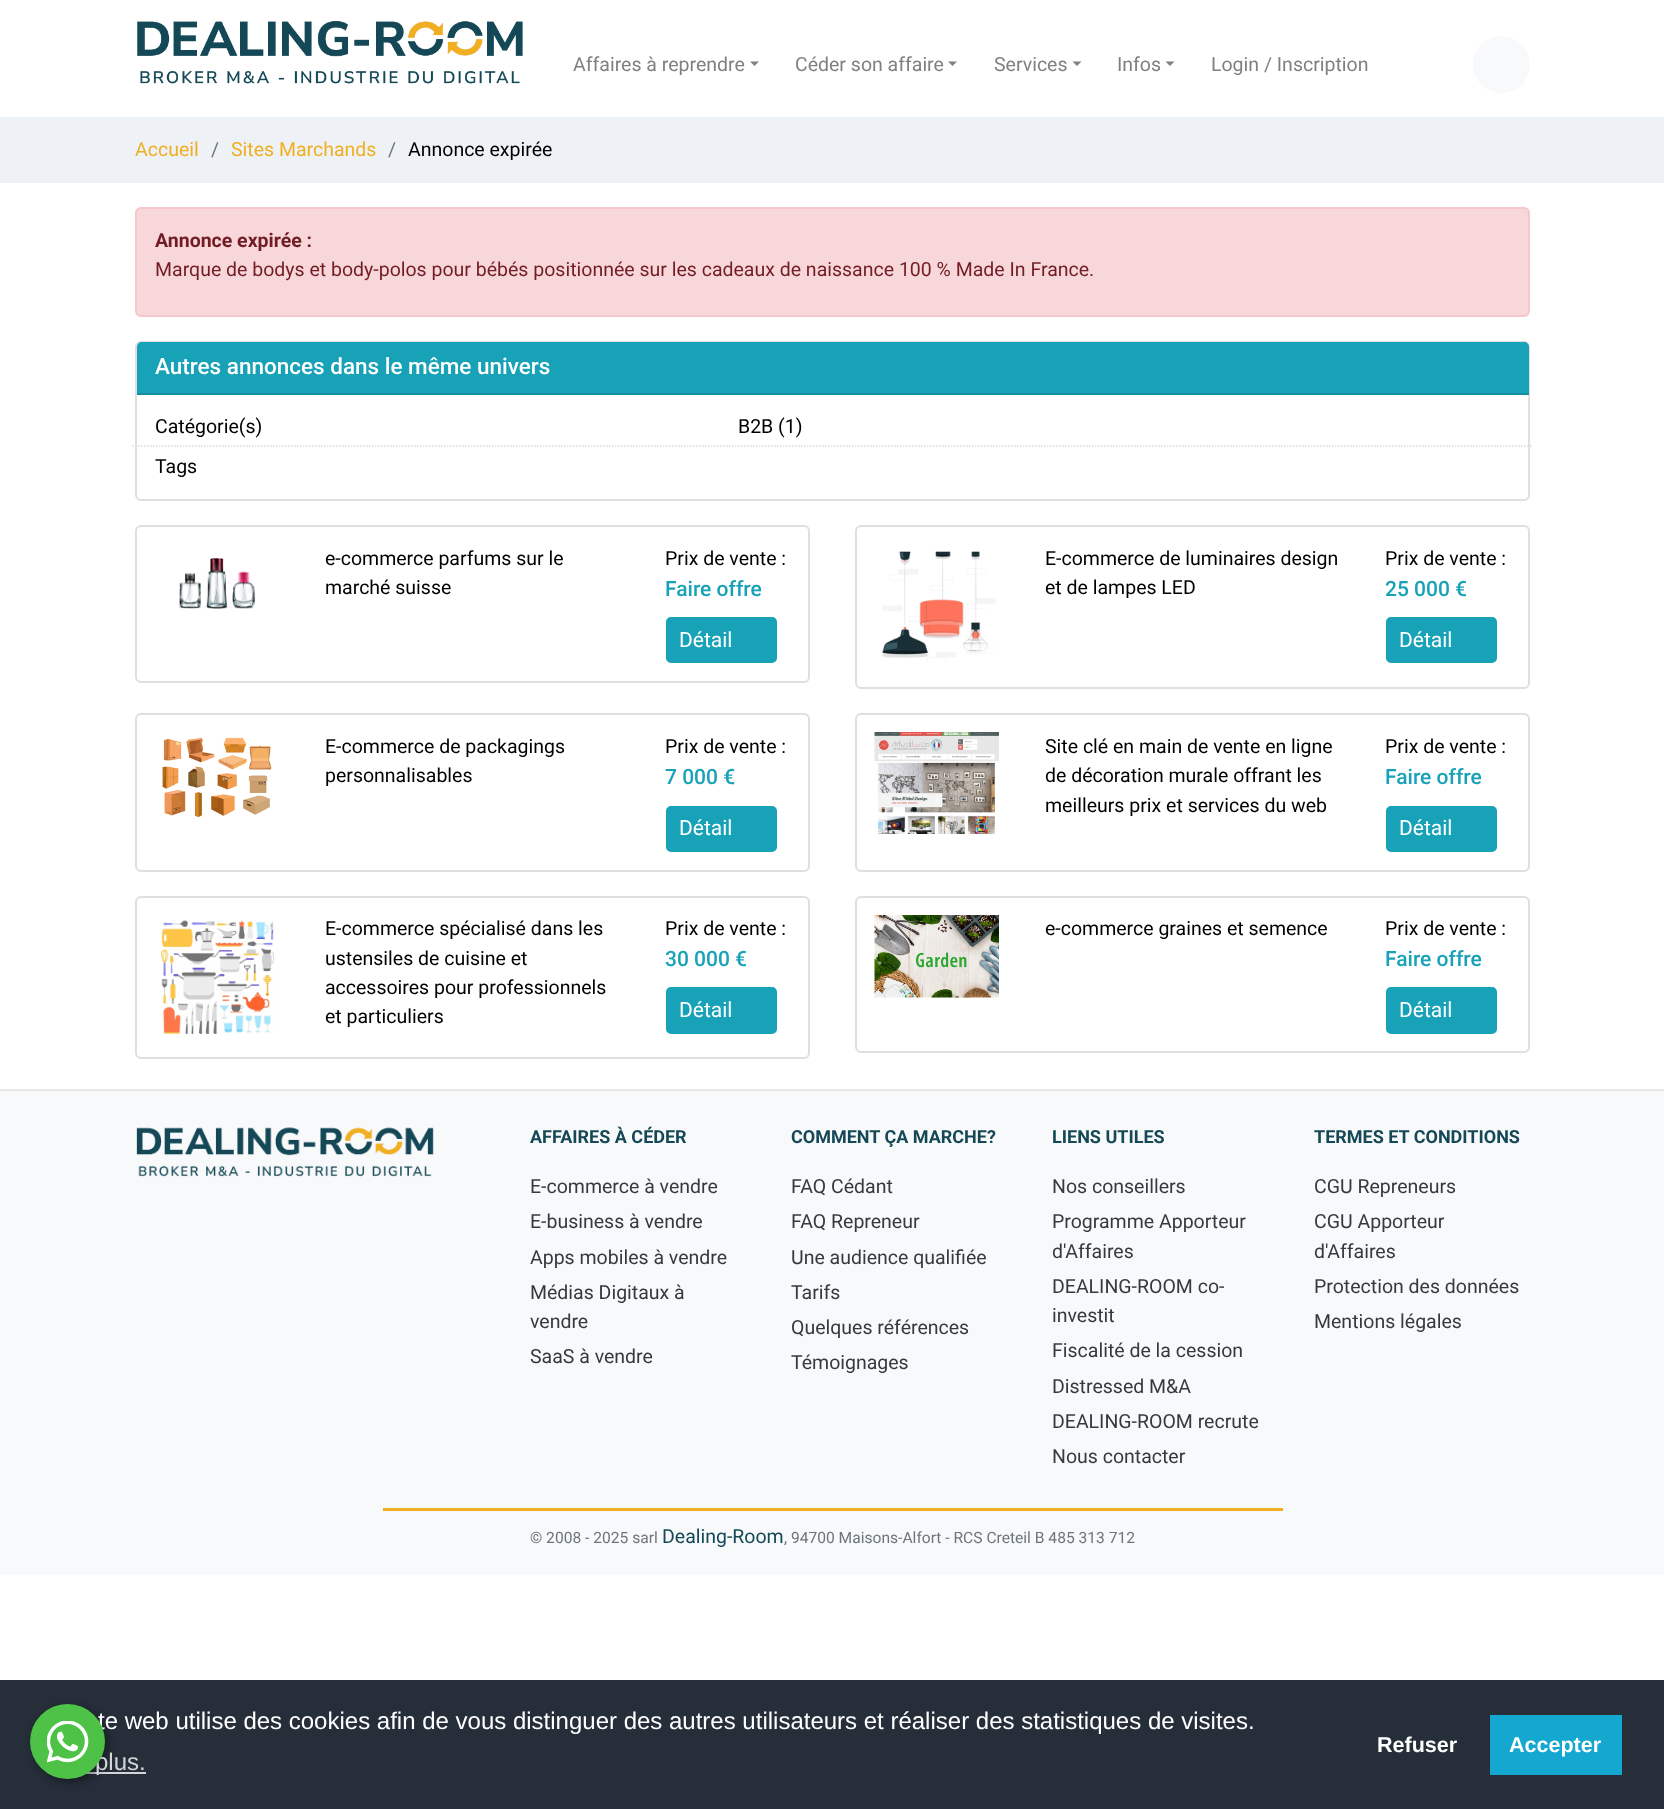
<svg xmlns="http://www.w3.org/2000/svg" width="1664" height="1809">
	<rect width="100%" height="100%" fill="#FFFFFF" />
	<image x="137" y="20" width="386" height="64" href="assets/img1.png" />
	<text x="573" y="71" font-family="Roboto" font-size="19.5" fill="#808080">Affaires à reprendre</text>
	<path d="M750 61.5H759L754.5 66Z" fill="#808080" />
	<text x="795" y="71" font-family="Roboto" font-size="19.5" fill="#808080">Céder son affaire</text>
	<path d="M948 61.5H957L952.5 66Z" fill="#808080" />
	<text x="994" y="71" font-family="Roboto" font-size="19.5" fill="#808080">Services</text>
	<path d="M1072.5 61.5H1081.5L1077 66Z" fill="#808080" />
	<text x="1117" y="71" font-family="Roboto" font-size="19.5" fill="#808080">Infos</text>
	<path d="M1165.5 61.5H1174.5L1170 66Z" fill="#808080" />
	<text x="1211" y="71" font-family="Roboto" font-size="19.5" fill="#808080">Login / Inscription</text>
	<circle cx="1501.5" cy="64.5" r="28.5" fill="#F8F9FA" />
	<rect x="0" y="117" width="1664" height="66" fill="#EEF2F6" />
	<text x="135" y="156" font-family="Roboto" font-size="19.5" fill="#F0AF21">Accueil</text>
	<text x="211" y="156" font-family="Roboto" font-size="19.5" fill="#6C757D">/</text>
	<text x="231" y="156" font-family="Roboto" font-size="19.5" fill="#F0AF21">Sites Marchands</text>
	<text x="388" y="156" font-family="Roboto" font-size="19.5" fill="#6C757D">/</text>
	<text x="408" y="156" font-family="Roboto" font-size="19.5" fill="#000000">Annonce expirée</text>
	<rect x="136" y="208" width="1393" height="108" rx="5" fill="#F8D7DA" stroke="#F5C6CB" stroke-width="2" />
	<text x="155" y="247" font-family="Roboto" font-size="19.5" font-weight="700" fill="#721C24">Annonce expirée :</text>
	<text x="155" y="276" font-family="Roboto" font-size="19.5" fill="#721C24">Marque de bodys et body-polos pour bébés positionnée sur les cadeaux de naissance 100 % Made In France.</text>
	<rect x="136" y="342" width="1393" height="158" rx="5" fill="none" stroke="#DFDFDF" stroke-width="2" />
	<path d="M142 342H1524C1527 342 1529 344 1529 347V395H137V347C137 344 139 342 142 342Z" fill="#17A2B8" />
	<rect x="137" y="393" width="1392" height="2" fill="#148EA1" />
	<text x="155" y="374" font-family="Roboto" font-size="22.5" font-weight="500" fill="#FFFFFF">Autres annonces dans le même univers</text>
	<path d="M132 446H1533" fill="none" stroke="#D9D9D9" stroke-width="1.5" stroke-dasharray="1.5 1.5" />
	<g font-family="Roboto" font-size="19.5" fill="#000000">
		<text x="155" y="433">Catégorie(s)</text>
		<text x="738" y="433">B2B (1)</text>
		<text x="155" y="473">Tags</text>
	</g>
	<rect x="136" y="526" width="673" height="156" rx="5" fill="none" stroke="#DFDFDF" stroke-width="2" />
	<image x="179" y="558" width="77" height="51" href="assets/img2.png" />
	<g font-family="Roboto" font-size="19.5" fill="#000000">
		<text x="325" y="565">e-commerce parfums sur le</text>
		<text x="325" y="594">marché suisse</text>
		<text x="665" y="565">Prix de vente :</text>
	</g>
	<text x="665" y="596" font-family="Roboto" font-size="21" font-weight="500" fill="#17A2B8">Faire offre</text>
	<rect x="667" y="618" width="109" height="44" rx="4" fill="#17A2B8" stroke="#17A2B8" stroke-width="2" />
	<text x="679" y="647" font-family="Roboto" font-size="21" fill="#FFFFFF">Détail</text>
	<rect x="856" y="526" width="673" height="162" rx="5" fill="none" stroke="#DFDFDF" stroke-width="2" />
	<image x="881" y="551" width="115" height="112" href="assets/img3.png" />
	<g font-family="Roboto" font-size="19.5" fill="#000000">
		<text x="1045" y="565">E-commerce de luminaires design</text>
		<text x="1045" y="594">et de lampes LED</text>
		<text x="1385" y="565">Prix de vente :</text>
	</g>
	<text x="1385" y="596" font-family="Roboto" font-size="21" font-weight="500" fill="#17A2B8">25 000 €</text>
	<rect x="1387" y="618" width="109" height="44" rx="4" fill="#17A2B8" stroke="#17A2B8" stroke-width="2" />
	<text x="1399" y="647" font-family="Roboto" font-size="21" fill="#FFFFFF">Détail</text>
	<rect x="136" y="714" width="673" height="157" rx="5" fill="none" stroke="#DFDFDF" stroke-width="2" />
	<image x="162" y="737" width="110" height="80" href="assets/img4.png" />
	<g font-family="Roboto" font-size="19.5" fill="#000000">
		<text x="325" y="753">E-commerce de packagings</text>
		<text x="325" y="782">personnalisables</text>
		<text x="665" y="753">Prix de vente :</text>
	</g>
	<text x="665" y="784" font-family="Roboto" font-size="21" font-weight="500" fill="#17A2B8">7 000 €</text>
	<rect x="667" y="807" width="109" height="44" rx="4" fill="#17A2B8" stroke="#17A2B8" stroke-width="2" />
	<text x="679" y="835" font-family="Roboto" font-size="21" fill="#FFFFFF">Détail</text>
	<rect x="856" y="714" width="673" height="157" rx="5" fill="none" stroke="#DFDFDF" stroke-width="2" />
	<image x="874" y="732" width="125" height="102" href="assets/img5.png" />
	<g font-family="Roboto" font-size="19.5" fill="#000000">
		<text x="1045" y="753">Site clé en main de vente en ligne</text>
		<text x="1045" y="782">de décoration murale offrant les</text>
		<text x="1045" y="812">meilleurs prix et services du web</text>
		<text x="1385" y="753">Prix de vente :</text>
	</g>
	<text x="1385" y="784" font-family="Roboto" font-size="21" font-weight="500" fill="#17A2B8">Faire offre</text>
	<rect x="1387" y="807" width="109" height="44" rx="4" fill="#17A2B8" stroke="#17A2B8" stroke-width="2" />
	<text x="1399" y="835" font-family="Roboto" font-size="21" fill="#FFFFFF">Détail</text>
	<rect x="136" y="897" width="673" height="161" rx="5" fill="none" stroke="#DFDFDF" stroke-width="2" />
	<image x="160" y="920" width="114" height="114" href="assets/img6.png" />
	<g font-family="Roboto" font-size="19.5" fill="#000000">
		<text x="325" y="935">E-commerce spécialisé dans les</text>
		<text x="325" y="965">ustensiles de cuisine et</text>
		<text x="325" y="994">accessoires pour professionnels</text>
		<text x="325" y="1023">et particuliers</text>
		<text x="665" y="935">Prix de vente :</text>
	</g>
	<text x="665" y="966" font-family="Roboto" font-size="21" font-weight="500" fill="#17A2B8">30 000 €</text>
	<rect x="667" y="988" width="109" height="45" rx="4" fill="#17A2B8" stroke="#17A2B8" stroke-width="2" />
	<text x="679" y="1017" font-family="Roboto" font-size="21" fill="#FFFFFF">Détail</text>
	<rect x="856" y="897" width="673" height="155" rx="5" fill="none" stroke="#DFDFDF" stroke-width="2" />
	<image x="874" y="915" width="125" height="83" href="assets/img7.png" />
	<g font-family="Roboto" font-size="19.5" fill="#000000">
		<text x="1045" y="935">e-commerce graines et semence</text>
		<text x="1385" y="935">Prix de vente :</text>
	</g>
	<text x="1385" y="966" font-family="Roboto" font-size="21" font-weight="500" fill="#17A2B8">Faire offre</text>
	<rect x="1387" y="988" width="109" height="45" rx="4" fill="#17A2B8" stroke="#17A2B8" stroke-width="2" />
	<text x="1399" y="1017" font-family="Roboto" font-size="21" fill="#FFFFFF">Détail</text>
	<rect x="0" y="1091" width="1664" height="484" fill="#F8F9FA" />
	<rect x="0" y="1089" width="1664" height="2" fill="#E7E7E7" />
	<image x="136" y="1127" width="298" height="50" href="assets/img8.png" />
	<text x="530" y="1143" font-family="Roboto" font-size="18" font-weight="700" fill="#144856">AFFAIRES À CÉDER</text>
	<g font-family="Roboto" font-size="19.5" fill="#343A40">
		<text x="530" y="1193">E-commerce à vendre</text>
		<text x="530" y="1228">E-business à vendre</text>
		<text x="530" y="1264">Apps mobiles à vendre</text>
		<text x="530" y="1299">Médias Digitaux à</text>
		<text x="530" y="1328">vendre</text>
		<text x="530" y="1363">SaaS à vendre</text>
	</g>
	<text x="791" y="1143" font-family="Roboto" font-size="18" font-weight="700" fill="#144856">COMMENT ÇA MARCHE?</text>
	<g font-family="Roboto" font-size="19.5" fill="#343A40">
		<text x="791" y="1193">FAQ Cédant</text>
		<text x="791" y="1228">FAQ Repreneur</text>
		<text x="791" y="1264">Une audience qualifiée</text>
		<text x="791" y="1299">Tarifs</text>
		<text x="791" y="1334">Quelques références</text>
		<text x="791" y="1369">Témoignages</text>
	</g>
	<text x="1052" y="1143" font-family="Roboto" font-size="18" font-weight="700" fill="#144856">LIENS UTILES</text>
	<g font-family="Roboto" font-size="19.5" fill="#343A40">
		<text x="1052" y="1193">Nos conseillers</text>
		<text x="1052" y="1228">Programme Apporteur</text>
		<text x="1052" y="1258">d'Affaires</text>
		<text x="1052" y="1293">DEALING-ROOM co-</text>
		<text x="1052" y="1322">investit</text>
		<text x="1052" y="1357">Fiscalité de la cession</text>
		<text x="1052" y="1393">Distressed M&amp;A</text>
		<text x="1052" y="1428">DEALING-ROOM recrute</text>
		<text x="1052" y="1463">Nous contacter</text>
	</g>
	<text x="1314" y="1143" font-family="Roboto" font-size="18" font-weight="700" fill="#144856">TERMES ET CONDITIONS</text>
	<g font-family="Roboto" font-size="19.5" fill="#343A40">
		<text x="1314" y="1193">CGU Repreneurs</text>
		<text x="1314" y="1228">CGU Apporteur</text>
		<text x="1314" y="1258">d'Affaires</text>
		<text x="1314" y="1293">Protection des données</text>
		<text x="1314" y="1328">Mentions légales</text>
	</g>
	<rect x="383" y="1508" width="900" height="3" fill="#F0AF21" />
	<text x="530" y="1543" font-family="Roboto" font-size="15.6" fill="#6C757D">© 2008 - 2025 sarl</text>
	<text x="662" y="1543" font-family="Roboto" font-size="19.5" fill="#144856">Dealing-Room</text>
	<text x="784" y="1543" font-family="Roboto" font-size="15.6" fill="#6C757D">, 94700 Maisons-Alfort - RCS Creteil B 485 313 712</text>
	<rect x="0" y="1680" width="1664" height="129" fill="#252E39" />
	<rect x="48" y="1772" width="98" height="2" fill="#D3D5D7" />
	<rect x="33" y="1707" width="75" height="75" rx="37.5" fill="#000000" fill-opacity="0.4" filter="blur(4.5px)" />
	<text x="98" y="1729" font-family="Liberation Sans" font-size="24" fill="#FFFFFF">te web utilise des cookies afin de vous distinguer des autres utilisateurs et réaliser des statistiques de visites.</text>
	<text x="95" y="1770" font-family="Liberation Sans" font-size="24" fill="#D3D5D7">plus.</text>
	<circle cx="67.5" cy="1741.5" r="37.5" fill="#4DC247" />
	<image x="47" y="1721" width="42" height="42" href="assets/img9.png" />
	<text x="1377" y="1752" font-family="Liberation Sans" font-size="21.5" font-weight="700" fill="#FFFFFF">Refuser</text>
	<rect x="1490" y="1715" width="132" height="60" fill="#14A7D0" />
	<text x="1509" y="1752" font-family="Liberation Sans" font-size="21.5" font-weight="700" fill="#FFFFFF">Accepter</text>
</svg>
